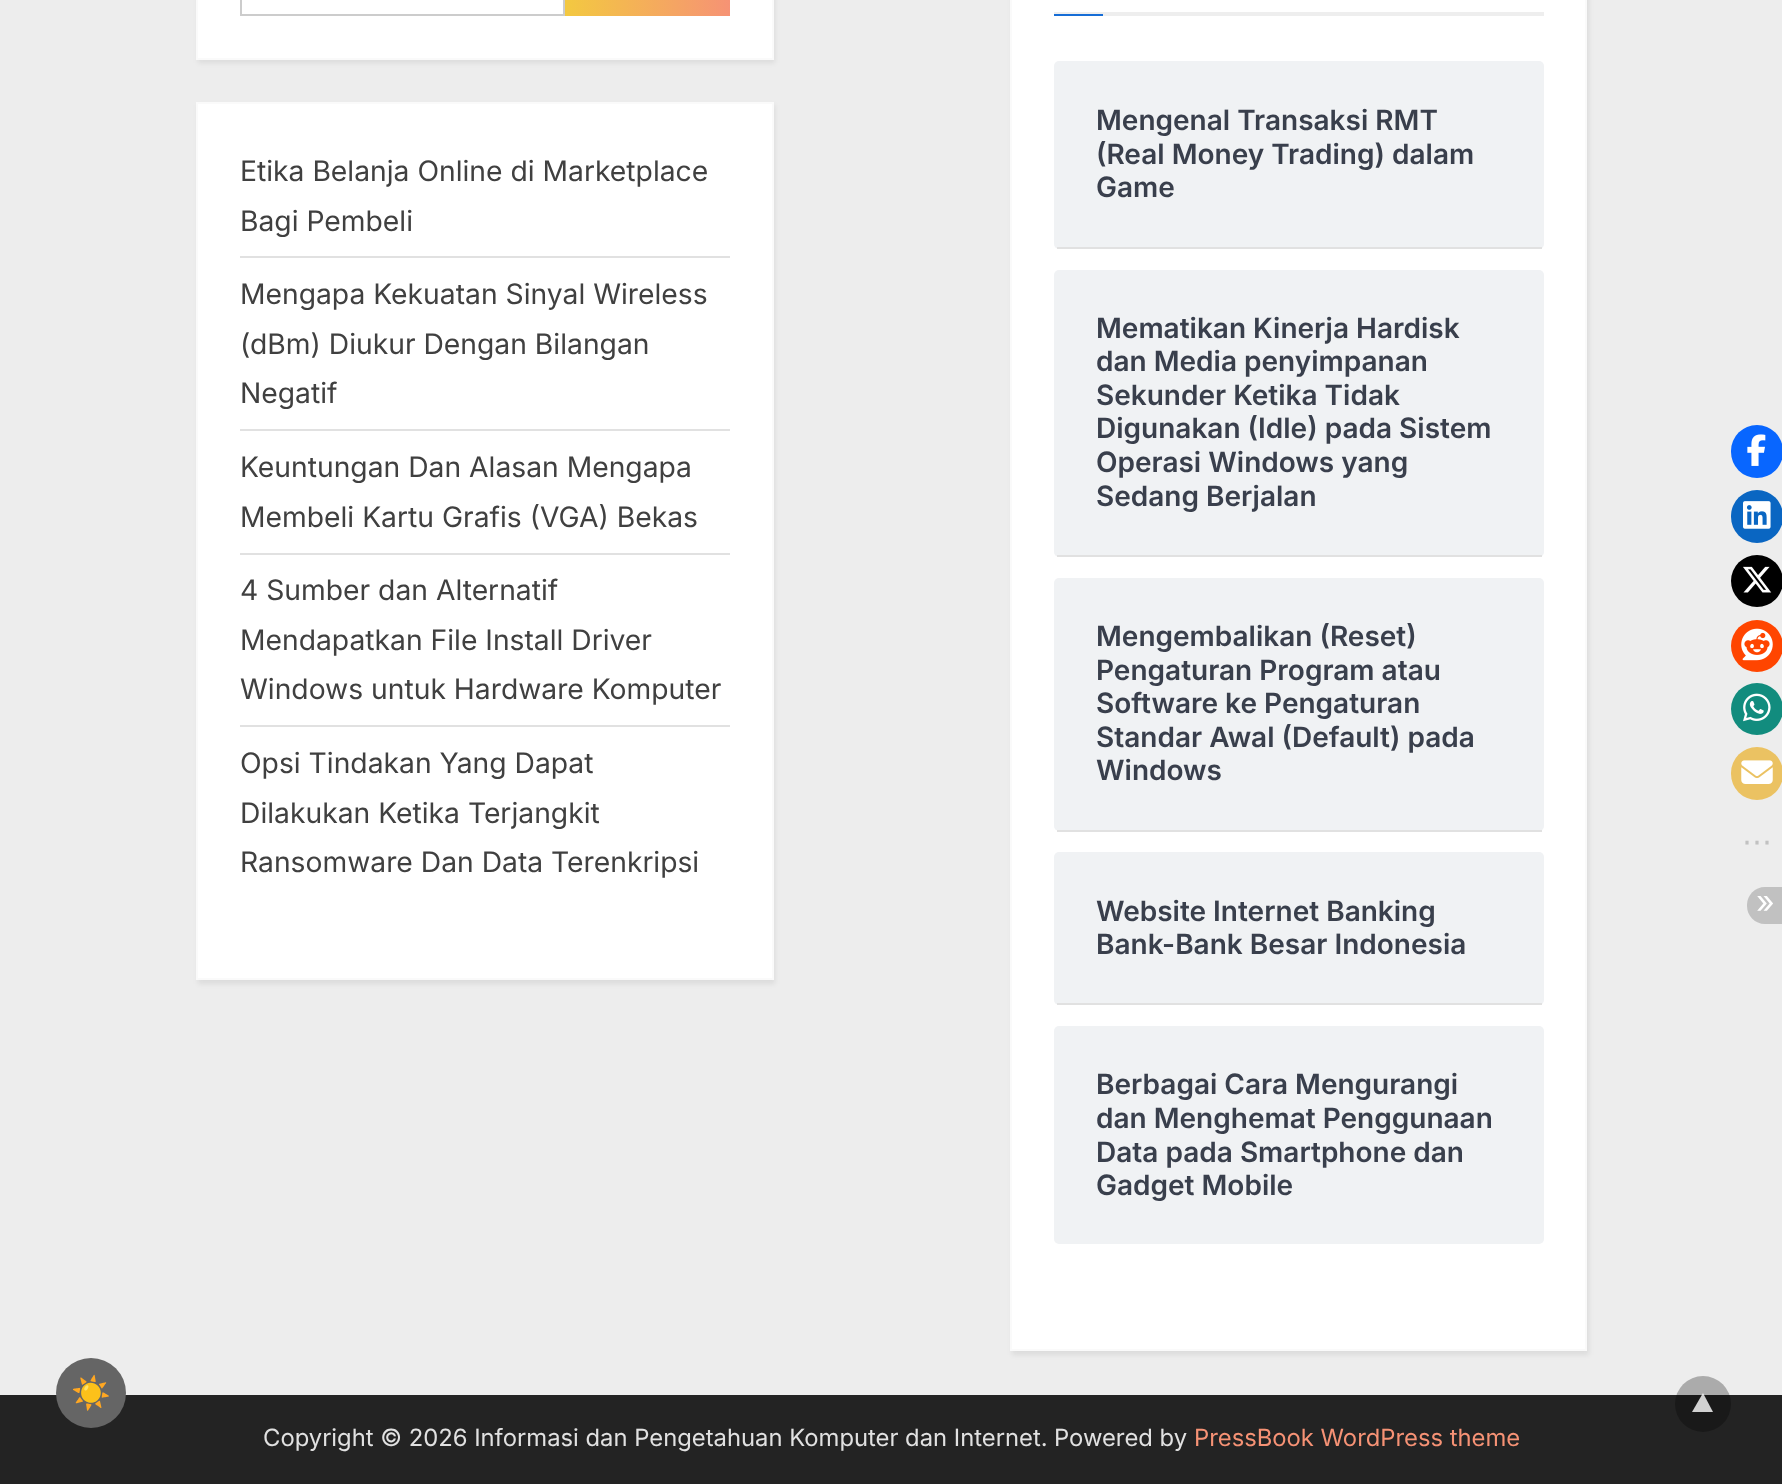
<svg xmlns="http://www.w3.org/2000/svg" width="1782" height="1484">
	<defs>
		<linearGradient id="g1" gradientUnits="userSpaceOnUse" x1="245" y1="-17" x2="567" y2="-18"><stop offset="0" stop-color="#F3C841" /><stop offset="0.51" stop-color="#F69275" /><stop offset="1" stop-color="#F3C841" /></linearGradient>
		<linearGradient id="g2" gradientUnits="userSpaceOnUse" x1="567" y1="-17" x2="889" y2="-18"><stop offset="0" stop-color="#F3C841" /><stop offset="0.51" stop-color="#F69275" /><stop offset="1" stop-color="#F3C841" /></linearGradient>
	</defs>
	<rect width="100%" height="100%" fill="#EDEDED" />
	<rect x="198" y="-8" width="577" height="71" fill="#000000" fill-opacity="0.07" filter="blur(2.5px)" />
	<rect x="197" y="-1" width="576" height="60" fill="#FFFFFF" stroke="#FAFAFA" stroke-width="2" />
	<rect x="241" y="-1" width="323" height="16" fill="none" stroke="#CCCCCC" stroke-width="2" />
	<rect x="565" y="0" width="2" height="16" fill="url(#g1)" />
	<rect x="567" y="0" width="163" height="16" fill="url(#g2)" />
	<rect x="198" y="105" width="577" height="879" fill="#000000" fill-opacity="0.07" filter="blur(2.5px)" />
	<rect x="197" y="103" width="576" height="876" fill="#FFFFFF" stroke="#FAFAFA" stroke-width="2" />
	<rect x="240" y="256" width="490" height="2" fill="#E1E1E1" />
	<g font-family="Inter" font-size="28.25" fill="#404040">
		<text x="240" y="181">Etika Belanja Online di Marketplace</text>
		<text x="240" y="231">Bagi Pembeli</text>
	</g>
	<rect x="240" y="429" width="490" height="2" fill="#E1E1E1" />
	<g font-family="Inter" font-size="28.25" fill="#404040">
		<text x="240" y="304">Mengapa Kekuatan Sinyal Wireless</text>
		<text x="240" y="354">(dBm) Diukur Dengan Bilangan</text>
		<text x="240" y="403">Negatif</text>
	</g>
	<rect x="240" y="553" width="490" height="2" fill="#E1E1E1" />
	<g font-family="Inter" font-size="28.25" fill="#404040">
		<text x="240" y="477">Keuntungan Dan Alasan Mengapa</text>
		<text x="240" y="527">Membeli Kartu Grafis (VGA) Bekas</text>
	</g>
	<rect x="240" y="725" width="490" height="2" fill="#E1E1E1" />
	<g font-family="Inter" font-size="28.25" fill="#404040">
		<text x="240" y="600">4 Sumber dan Alternatif</text>
		<text x="240" y="650">Mendapatkan File Install Driver</text>
		<text x="240" y="699">Windows untuk Hardware Komputer</text>
		<text x="240" y="773">Opsi Tindakan Yang Dapat</text>
		<text x="240" y="823">Dilakukan Ketika Terjangkit</text>
		<text x="240" y="872">Ransomware Dan Data Terenkripsi</text>
	</g>
	<rect x="1012" y="-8" width="577" height="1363" fill="#000000" fill-opacity="0.07" filter="blur(2.5px)" />
	<rect x="1011" y="-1" width="575" height="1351" fill="#FFFFFF" stroke="#FAFAFA" stroke-width="2" />
	<rect x="1054" y="12" width="490" height="4" fill="#EEEEEE" />
	<rect x="1054" y="14" width="49" height="2" fill="#166DD6" />
	<rect x="1054" y="61" width="490" height="188" rx="5" fill="#F0F2F4" />
	<rect x="1057" y="247" width="485" height="2" fill="#E1E1E1" />
	<g font-family="Inter" font-size="28" font-weight="600" fill="#393F4C">
		<text x="1096" y="130">Mengenal Transaksi RMT</text>
		<text x="1096" y="164">(Real Money Trading) dalam</text>
		<text x="1096" y="197">Game</text>
	</g>
	<rect x="1054" y="270" width="490" height="287" rx="5" fill="#F0F2F4" />
	<rect x="1057" y="555" width="485" height="2" fill="#E1E1E1" />
	<g font-family="Inter" font-size="28" font-weight="600" fill="#393F4C">
		<text x="1096" y="338">Mematikan Kinerja Hardisk</text>
		<text x="1096" y="371">dan Media penyimpanan</text>
		<text x="1096" y="405">Sekunder Ketika Tidak</text>
		<text x="1096" y="438">Digunakan (Idle) pada Sistem</text>
		<text x="1096" y="472">Operasi Windows yang</text>
		<text x="1096" y="506">Sedang Berjalan</text>
	</g>
	<rect x="1054" y="578" width="490" height="253" rx="5" fill="#F0F2F4" />
	<rect x="1057" y="830" width="485" height="2" fill="#E1E1E1" />
	<g font-family="Inter" font-size="28" font-weight="600" fill="#393F4C">
		<text x="1096" y="646">Mengembalikan (Reset)</text>
		<text x="1096" y="680">Pengaturan Program atau</text>
		<text x="1096" y="713">Software ke Pengaturan</text>
		<text x="1096" y="747">Standar Awal (Default) pada</text>
		<text x="1096" y="780">Windows</text>
	</g>
	<rect x="1054" y="852" width="490" height="153" rx="5" fill="#F0F2F4" />
	<rect x="1057" y="1003" width="485" height="2" fill="#E1E1E1" />
	<g font-family="Inter" font-size="28" font-weight="600" fill="#393F4C">
		<text x="1096" y="921">Website Internet Banking</text>
		<text x="1096" y="954">Bank-Bank Besar Indonesia</text>
	</g>
	<rect x="1054" y="1026" width="490" height="218" rx="5" fill="#F0F2F4" />
	<g font-family="Inter" font-size="28" font-weight="600" fill="#393F4C">
		<text x="1096" y="1094">Berbagai Cara Mengurangi</text>
		<text x="1096" y="1128">dan Menghemat Penggunaan</text>
		<text x="1096" y="1162">Data pada Smartphone dan</text>
		<text x="1096" y="1195">Gadget Mobile</text>
	</g>
	<rect x="0" y="1395" width="1782" height="89" fill="#232323" />
	<circle cx="1703" cy="1404" r="28" fill="#000000" fill-opacity="0.28" />
	<path d="M1713 1412H1692L1703 1393Z" fill="#FFFFFF" fill-opacity="0.8" />
	<g font-family="Inter" font-size="23.8" fill="#E1E1E1">
		<text x="263" y="1446">Copyright © 2026 Informasi dan Pengetahuan Komputer dan Internet.</text>
		<text x="1054" y="1446">Powered by</text>
	</g>
	<text x="1194" y="1446" font-family="Inter" font-size="23.8" fill="#F69275">PressBook WordPress theme</text>
	<rect x="1731" y="425" width="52" height="53" rx="26" fill="#0866FF" />
	<image x="1747" y="434" width="19" height="32" href="assets/img1.png" />
	<rect x="1731" y="490" width="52" height="53" rx="26" fill="#0A66C2" />
	<image x="1743" y="501" width="28" height="28" href="assets/img2.png" />
	<circle cx="1757" cy="581" r="26" fill="#000000" />
	<image x="1743" y="566" width="29" height="27" href="assets/img3.png" />
	<circle cx="1757" cy="646" r="26" fill="#FF4500" />
	<image x="1741" y="628" width="32" height="33" href="assets/img4.png" />
	<circle cx="1757" cy="709" r="26" fill="#128C7E" />
	<image x="1743" y="693" width="28" height="29" href="assets/img5.png" />
	<rect x="1731" y="747" width="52" height="53" rx="26" fill="#EBC262" />
	<image x="1741" y="760" width="32" height="24" href="assets/img6.png" />
	<text x="1742" y="852" font-family="DejaVu Sans" font-size="30" fill="#C1C1C1">⋯</text>
	<path d="M1765 887H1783V924H1765C1755 924 1747 916 1747 906V905C1747 895 1755 887 1765 887Z" fill="#C1C1C1" />
	<text x="1756" y="913" font-family="Inter" font-size="32" fill="#FFFFFF">»</text>
	<circle cx="91" cy="1393" r="35" fill="#656565" />
	<text x="71" y="1404" font-family="Noto Color Emoji" font-size="32" font-weight="700" fill="#EEEEEE">☀️</text>
</svg>
